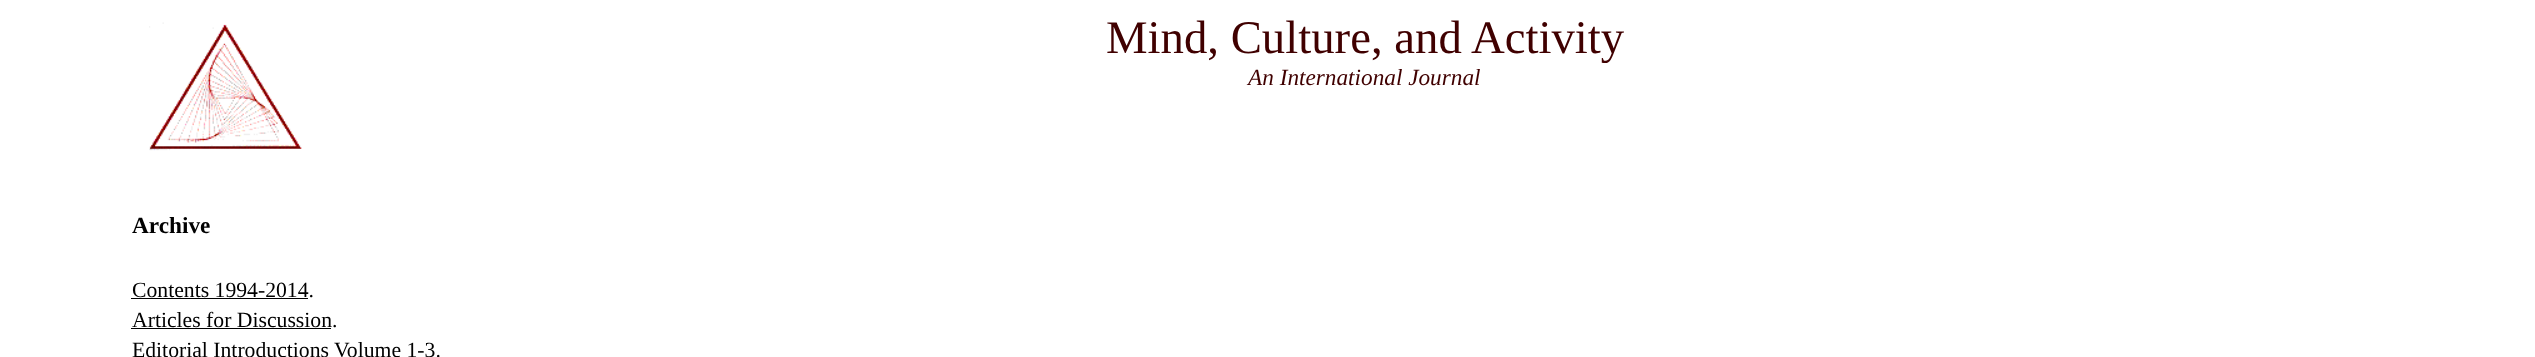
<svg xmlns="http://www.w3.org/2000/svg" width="2535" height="357">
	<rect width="100%" height="100%" fill="#FFFFFF" />
	<image x="149" y="22" width="153" height="129" href="assets/img1.png" />
	<text x="1106" y="53" font-family="Liberation Serif" font-size="46.75" fill="#400000">Mind, Culture, and Activity</text>
	<text x="1248" y="85" font-family="Liberation Serif" font-size="23.25" font-style="italic" fill="#400000">An International Journal</text>
	<text x="132" y="233" font-family="Liberation Serif" font-size="23.25" font-weight="700" fill="#000000">Archive</text>
	<text x="132" y="297" font-family="Liberation Serif" font-size="21.7" fill="#000000">Contents 1994-2014.</text>
	<rect x="131" y="298" width="177" height="1" fill="#000000" />
	<text x="132" y="327" font-family="Liberation Serif" font-size="21.7" fill="#000000">Articles for Discussion.</text>
	<rect x="131" y="328" width="200" height="1" fill="#000000" />
	<text x="132" y="357" font-family="Liberation Serif" font-size="21.7" fill="#000000">Editorial Introductions Volume 1-3.</text>
</svg>
